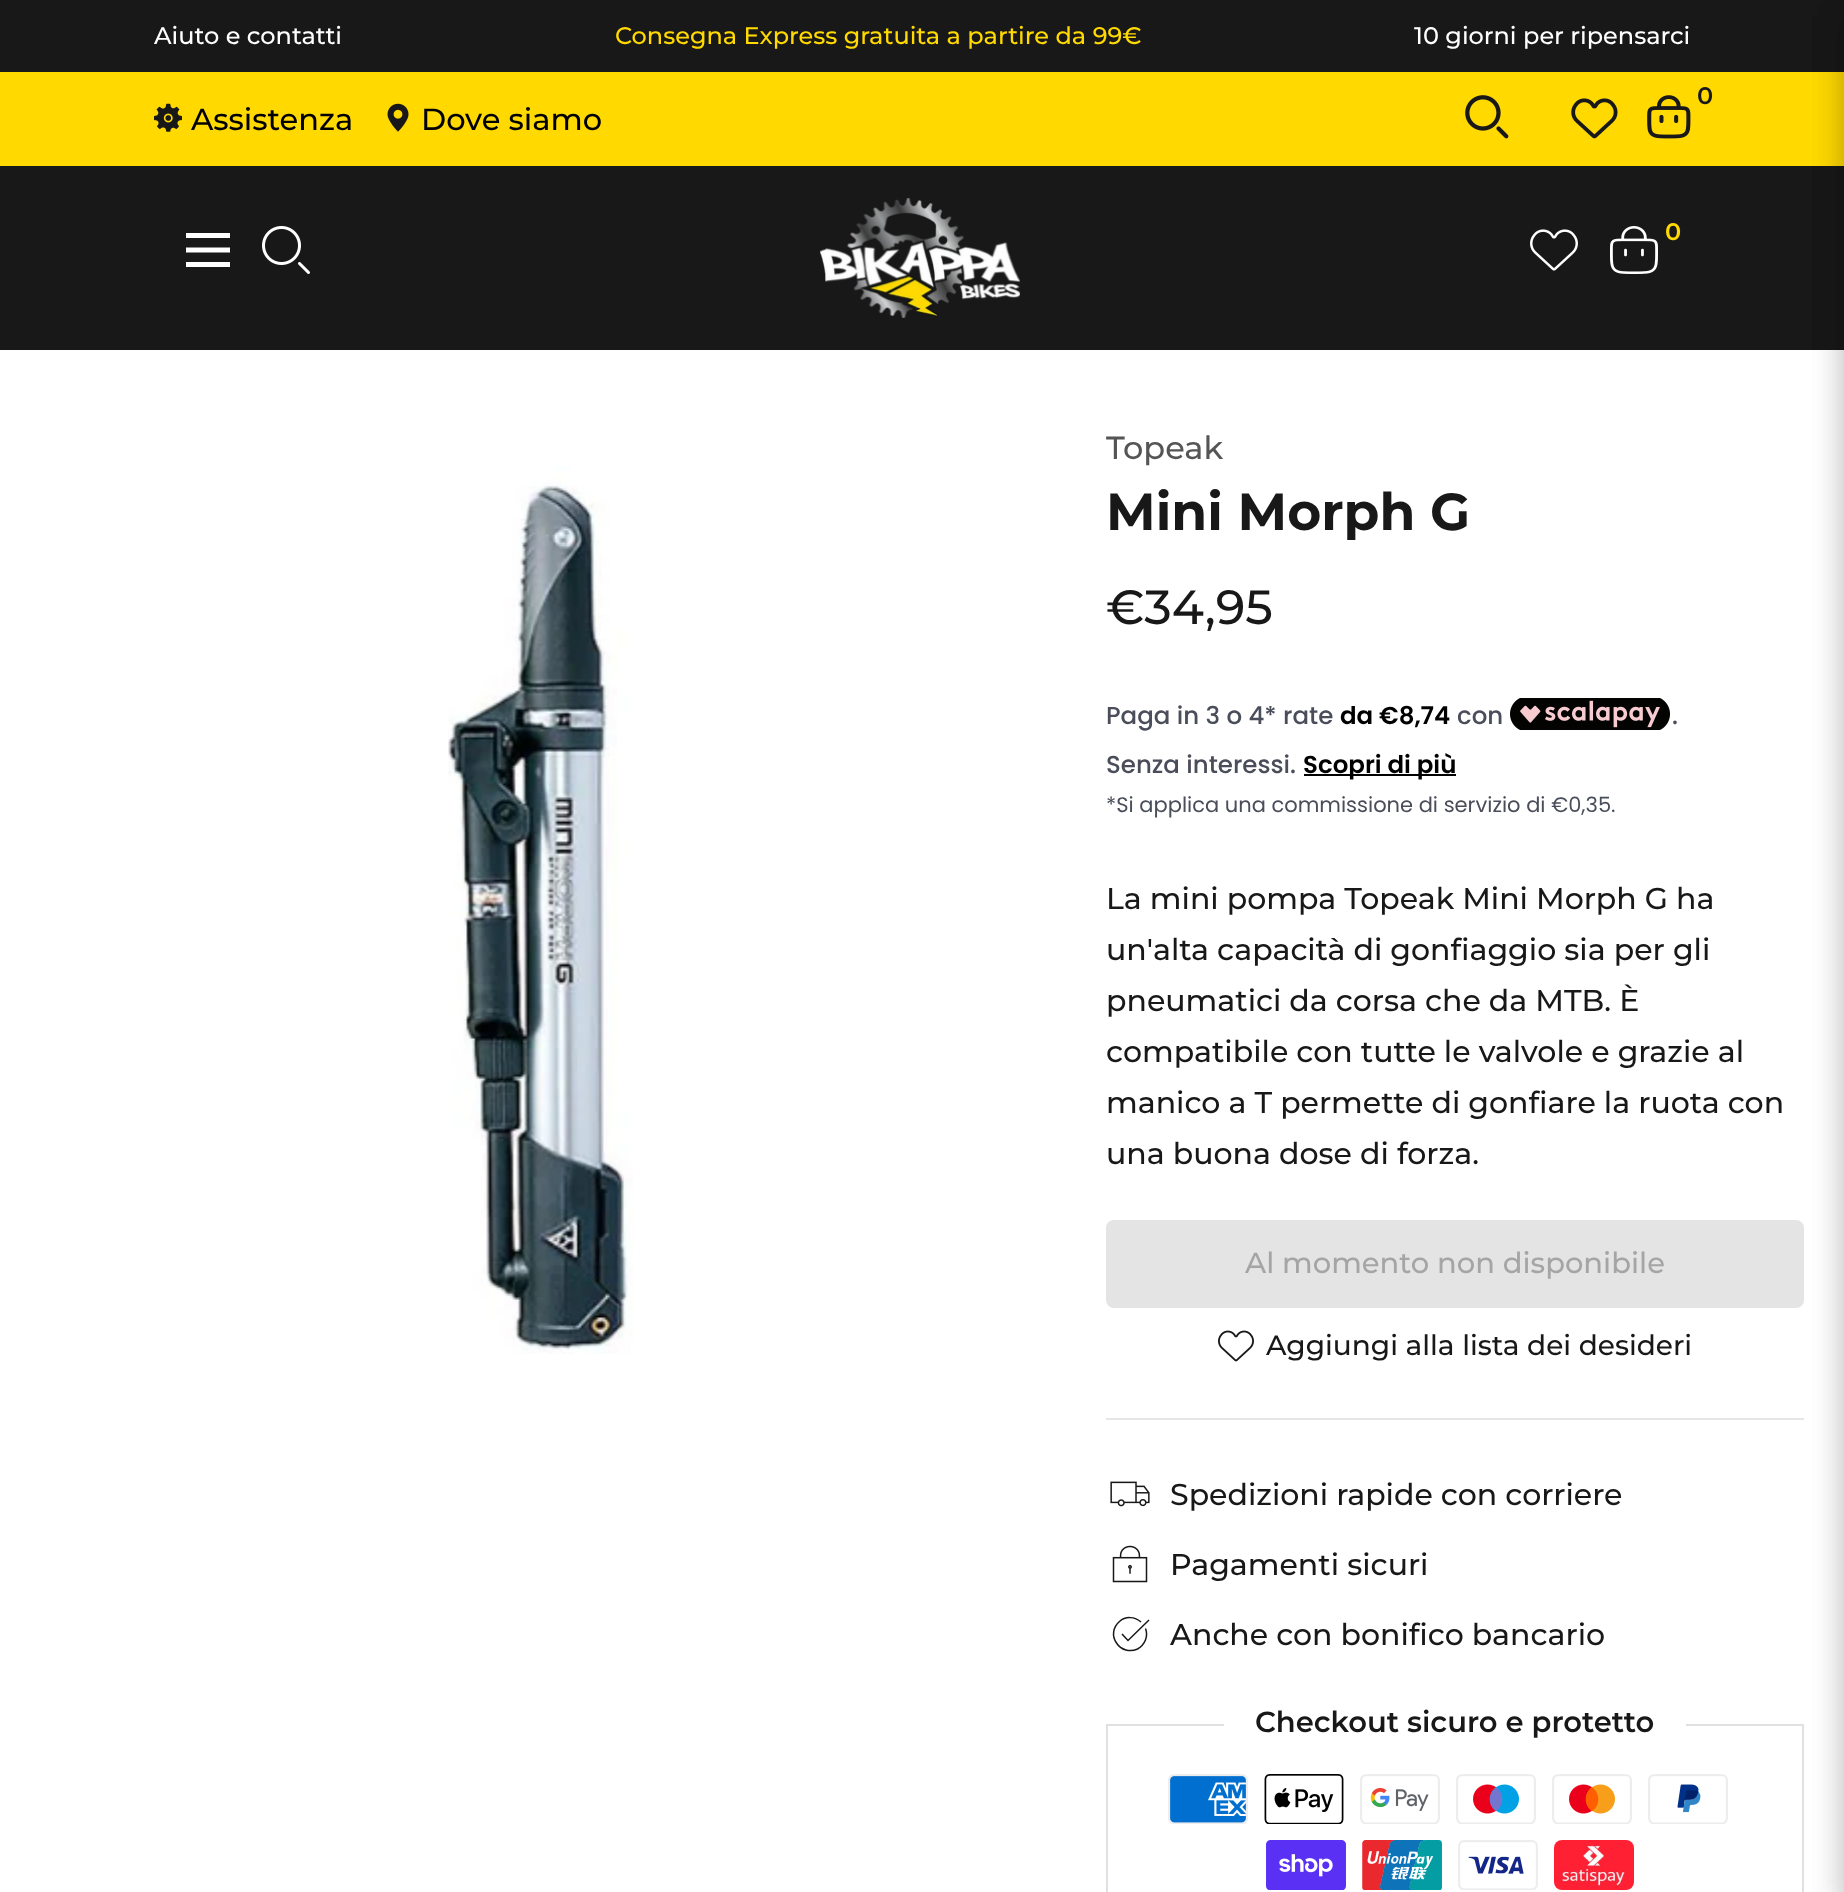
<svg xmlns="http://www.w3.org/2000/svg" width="1844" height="1892">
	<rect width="100%" height="100%" fill="#181818" />
	<text x="154" y="44" font-family="Montserrat" font-size="24" font-weight="500" fill="#FFFFFF">Aiuto e contatti</text>
	<text x="615" y="44" font-family="Montserrat" font-size="24" font-weight="500" fill="#FFD900">Consegna Express gratuita a partire da 99€</text>
	<text x="1414" y="44" font-family="Montserrat" font-size="24" font-weight="500" fill="#FFFFFF">10 giorni per ripensarci</text>
	<rect x="0" y="72" width="1844" height="94" fill="#FFD900" />
	<image x="1465" y="95" width="44" height="44" href="assets/img1.png" />
	<image x="1571" y="98" width="47" height="41" href="assets/img2.png" />
	<image x="1647" y="95" width="44" height="44" href="assets/img3.png" />
	<text x="1697" y="104" font-family="Montserrat" font-size="24" font-weight="600" fill="#181818">0</text>
	<rect x="0" y="350" width="1844" height="1542" fill="#FFFFFF" />
	<rect x="1106" y="1220" width="698" height="88" rx="8" fill="#E4E4E4" />
	<rect x="1106" y="1418" width="698" height="2" fill="#E6E6E6" />
	<rect x="1107" y="1725" width="696" height="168" fill="none" stroke="#E0E0E0" stroke-width="2" />
	<rect x="1844" y="16" width="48" height="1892" fill="#000000" fill-opacity="0.15" filter="blur(16px)" />
	<image x="154" y="103" width="28" height="29" href="assets/img4.png" />
	<text x="191" y="130" font-family="Montserrat" font-size="30.5" font-weight="500" fill="#000000">Assistenza</text>
	<image x="387" y="103" width="22" height="29" href="assets/img5.png" />
	<text x="421" y="130" font-family="Montserrat" font-size="30.5" font-weight="500" fill="#000000">Dove siamo</text>
	<path d="M186 235.5H230M186 264.5H230ZM186 250H230Z" fill="none" stroke="#FFFFFF" stroke-width="4.9" />
	<image x="262" y="226" width="48" height="48" href="assets/img6.png" />
	<image x="820" y="198" width="200" height="120" href="assets/img7.png" />
	<image x="1530" y="229" width="48" height="42" href="assets/img8.png" />
	<image x="1610" y="226" width="48" height="48" href="assets/img9.png" />
	<text x="1665" y="240" font-family="Montserrat" font-size="24" font-weight="600" fill="#FFD900">0</text>
	<rect x="1844" y="16" width="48" height="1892" fill="#000000" fill-opacity="0.15" filter="blur(16px)" />
	<image x="448" y="466" width="185" height="888" href="assets/img10.png" />
	<text x="1106" y="459" font-family="Montserrat" font-size="32" font-weight="500" fill="#555555">Topeak</text>
	<text x="1106" y="530" font-family="Montserrat" font-size="52" font-weight="700" fill="#181818">Mini Morph G</text>
	<text x="1106" y="624" font-family="Montserrat" font-size="48" font-weight="500" fill="#181818">€34,95</text>
	<text x="1106" y="724" font-family="Poppins" font-size="24.5" font-weight="500" fill="#4A4D5A">Paga in 3 o 4* rate</text>
	<text x="1340" y="724" font-family="Poppins" font-size="24.5" font-weight="600" fill="#000000">da €8,74</text>
	<text x="1457" y="724" font-family="Poppins" font-size="24.5" font-weight="500" fill="#4A4D5A">con</text>
	<image x="1510" y="698" width="160" height="32" href="assets/img11.png" />
	<g font-family="Poppins" font-size="24.5" font-weight="500" fill="#4A4D5A">
		<text x="1672" y="724">.</text>
		<text x="1106" y="773">Senza interessi.</text>
	</g>
	<rect x="1304" y="774" width="152" height="2" fill="#000000" />
	<text x="1303" y="773" font-family="Poppins" font-size="24.5" font-weight="600" fill="#000000">Scopri di più</text>
	<text x="1106" y="812" font-family="Poppins" font-size="21" fill="#4A4D5A">*Si applica una commissione di servizio di €0,35.</text>
	<g font-family="Montserrat" font-size="30" font-weight="500" fill="#181818">
		<text x="1106" y="909">La mini pompa Topeak Mini Morph G ha</text>
		<text x="1106" y="960">un'alta capacità di gonfiaggio sia per gli</text>
		<text x="1106" y="1011">pneumatici da corsa che da MTB. È</text>
		<text x="1106" y="1062">compatibile con tutte le valvole e grazie al</text>
		<text x="1106" y="1113">manico a T permette di gonfiare la ruota con</text>
		<text x="1106" y="1164">una buona dose di forza.</text>
	</g>
	<text x="1245" y="1273" font-family="Montserrat" font-size="29" font-weight="500" fill="#A5A5A5">Al momento non disponibile</text>
	<image x="1218" y="1330" width="36" height="32" href="assets/img12.png" />
	<text x="1266" y="1355" font-family="Montserrat" font-size="28" font-weight="500" fill="#181818">Aggiungi alla lista dei desideri</text>
	<image x="1110" y="1481" width="40" height="26" href="assets/img13.png" />
	<text x="1170" y="1505" font-family="Montserrat" font-size="30" font-weight="500" fill="#181818">Spedizioni rapide con corriere</text>
	<image x="1112" y="1545" width="36" height="38" href="assets/img14.png" />
	<text x="1170" y="1575" font-family="Montserrat" font-size="30" font-weight="500" fill="#181818">Pagamenti sicuri</text>
	<path d="M1145.5 1628.5C1148.5 1636 1145 1645 1137.5 1649C1130 1652.5 1121 1650 1116.5 1643C1111.5 1636 1113 1627 1119.5 1621.5C1125.5 1616 1135 1616.5 1141 1622M1122 1634L1128 1640.5L1149 1620" fill="none" stroke="#181818" stroke-width="1.5" />
	<text x="1170" y="1645" font-family="Montserrat" font-size="30" font-weight="500" fill="#181818">Anche con bonifico bancario</text>
	<rect x="1224" y="1724" width="462" height="2" fill="#FFFFFF" />
	<text x="1255" y="1732" font-family="Montserrat" font-size="29" font-weight="600" fill="#181818">Checkout sicuro e protetto</text>
	<image x="1168" y="1774" width="80" height="50" href="assets/img15.png" />
	<image x="1264" y="1774" width="80" height="50" href="assets/img16.png" />
	<image x="1360" y="1774" width="80" height="50" href="assets/img17.png" />
	<image x="1456" y="1774" width="80" height="50" href="assets/img18.png" />
	<image x="1552" y="1774" width="80" height="50" href="assets/img19.png" />
	<image x="1648" y="1774" width="80" height="50" href="assets/img20.png" />
	<image x="1266" y="1840" width="80" height="50" href="assets/img21.png" />
	<image x="1362" y="1840" width="80" height="50" href="assets/img22.png" />
	<image x="1458" y="1840" width="80" height="50" href="assets/img23.png" />
	<image x="1554" y="1840" width="80" height="50" href="assets/img24.png" />
</svg>
